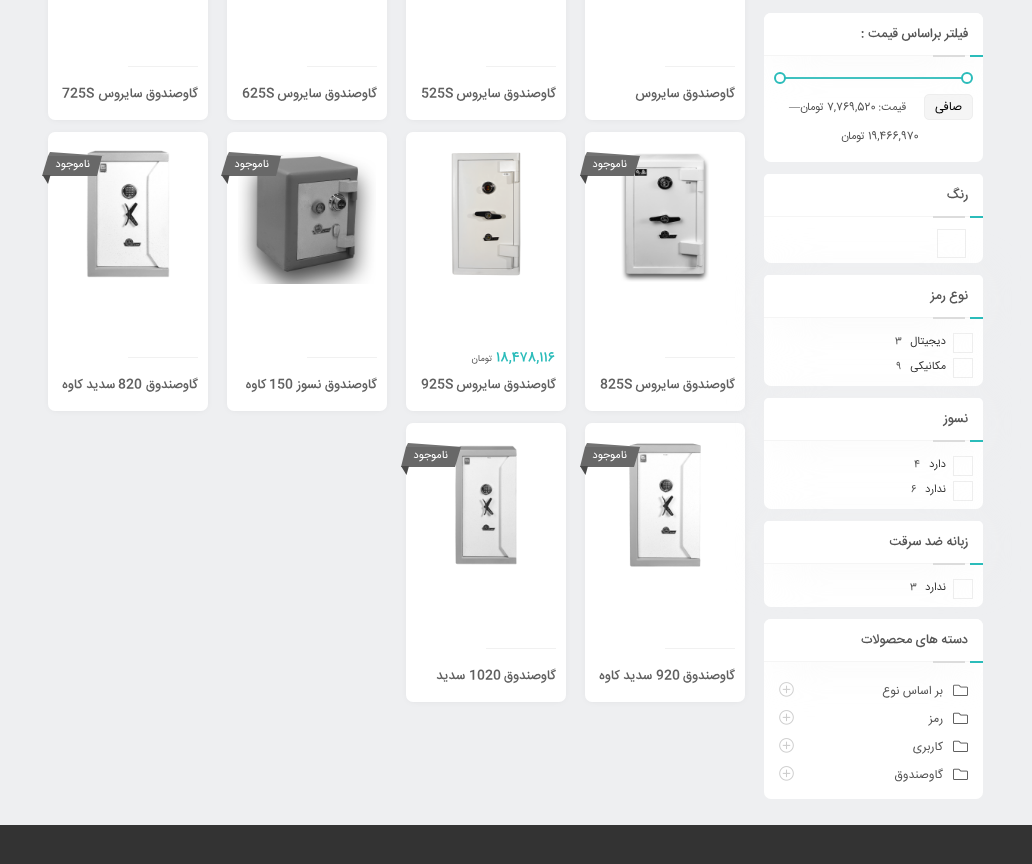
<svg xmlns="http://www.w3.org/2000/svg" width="1032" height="864">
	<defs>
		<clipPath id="clip1"><rect x="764" y="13" width="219" height="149" rx="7" /></clipPath>
		<clipPath id="clip2"><rect x="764" y="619" width="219" height="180" rx="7" /></clipPath>
	</defs>
	<rect width="100%" height="100%" fill="#EEEFF1" />
	<rect x="764" y="13" width="219" height="149" rx="7" fill="#FFFFFF" />
	<rect x="780" y="77" width="187" height="2" fill="#2BBCBA" />
	<rect x="924.5" y="94.5" width="48" height="25" rx="4.5" fill="#F5F5F5" stroke="#EEEEEE" />
	<rect x="588" y="-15" width="154" height="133" rx="4" fill="#000000" fill-opacity="0.1" filter="blur(3.5px)" />
	<rect x="585" y="-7" width="160" height="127" rx="7" fill="#FFFFFF" />
	<rect x="665" y="66" width="70" height="1" fill="#F1F1F1" />
	<g clip-path="url(#clip1)">
		<rect x="773" y="26" width="201" height="25" fill="#F5F5F5" filter="blur(25px)" />
	</g>
	<path d="M771 13H976C980 13 983 16 983 20V56H764V20C764 16 767 13 771 13Z" fill="#FFFFFF" />
	<rect x="764" y="55" width="206" height="1" fill="#F5F5F5" />
	<text x="968" y="37" font-family="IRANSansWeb" font-size="13" font-weight="500" direction="rtl" fill="#555555">فیلتر براساس قیمت :</text>
	<rect x="970" y="55" width="13" height="2" fill="#2BBCBA" />
	<rect x="933" y="55" width="32" height="2" fill="#DCDCDC" />
	<circle cx="967" cy="78" r="5" fill="#FFFFFF" stroke="#2BBCBA" stroke-width="2" />
	<circle cx="780" cy="78" r="5" fill="#FFFFFF" stroke="#2BBCBA" stroke-width="2" />
	<text x="962" y="110" font-family="IRANSansWeb" font-size="12" direction="rtl" fill="#000000">صافی</text>
	<text x="906" y="110" font-family="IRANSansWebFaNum" font-size="11" direction="rtl" fill="#555555">قيمت:</text>
	<text x="827" y="110" font-family="IRANSansWebFaNum" font-size="11" fill="#555555">7,769,520</text>
	<text x="824" y="110" font-family="IRANSansWebFaNum" font-size="11" direction="rtl" fill="#555555">تومان</text>
	<text x="789" y="110" font-family="Liberation Serif" font-size="11" fill="#555555">—</text>
	<text x="868" y="139" font-family="IRANSansWebFaNum" font-size="11" fill="#555555">19,466,970</text>
	<text x="865" y="139" font-family="IRANSansWebFaNum" font-size="11" direction="rtl" fill="#555555">تومان</text>
	<rect x="764" y="174" width="219" height="89" rx="7" fill="#FFFFFF" />
	<path d="M769 174H978C981 174 983 176 983 179V217H764V179C764 176 766 174 769 174Z" fill="#FFFFFF" />
	<rect x="764" y="216" width="206" height="1" fill="#F5F5F5" />
	<text x="968" y="198" font-family="IRANSansWeb" font-size="13" font-weight="500" direction="rtl" fill="#555555">رنگ</text>
	<rect x="970" y="216" width="13" height="2" fill="#2BBCBA" />
	<rect x="933" y="216" width="32" height="2" fill="#DCDCDC" />
	<rect x="937.5" y="229.5" width="28" height="28" fill="none" stroke="#EEEEEE" />
	<rect x="764" y="275" width="219" height="111" rx="7" fill="#FFFFFF" />
	<rect x="953.5" y="333.5" width="19" height="19" fill="none" stroke="#EEEEEE" />
	<rect x="953.5" y="358.5" width="19" height="19" fill="none" stroke="#EEEEEE" />
	<rect x="588" y="136" width="154" height="273" rx="4" fill="#000000" fill-opacity="0.1" filter="blur(3.5px)" />
	<rect x="585" y="132" width="160" height="279" rx="7" fill="#FFFFFF" />
	<image x="621" y="153" width="88" height="129" href="assets/img3.png" />
	<rect x="665" y="357" width="70" height="1" fill="#F1F1F1" />
	<rect x="773" y="288" width="201" height="25" fill="#F5F5F5" filter="blur(25px)" />
	<path d="M769 275H978C981 275 983 277 983 280V318H764V280C764 277 766 275 769 275Z" fill="#FFFFFF" />
	<rect x="764" y="317" width="206" height="1" fill="#F5F5F5" />
	<text x="968" y="299" font-family="IRANSansWeb" font-size="13" font-weight="500" direction="rtl" fill="#555555">نوع رمز</text>
	<rect x="970" y="317" width="13" height="2" fill="#2BBCBA" />
	<rect x="933" y="317" width="32" height="2" fill="#DCDCDC" />
	<text x="946" y="344" font-family="IRANSansWebFaNum" font-size="11" direction="rtl" fill="#333333">دیجیتال</text>
	<text x="895" y="344" font-family="IRANSansWebFaNum" font-size="10" fill="#555555">3</text>
	<text x="946" y="369" font-family="IRANSansWebFaNum" font-size="11" direction="rtl" fill="#333333">مکانیکی</text>
	<text x="896" y="369" font-family="IRANSansWebFaNum" font-size="10" fill="#555555">9</text>
	<rect x="764" y="398" width="219" height="111" rx="7" fill="#FFFFFF" />
	<rect x="953.5" y="456.5" width="19" height="19" fill="none" stroke="#EEEEEE" />
	<rect x="953.5" y="481.5" width="19" height="19" fill="none" stroke="#EEEEEE" />
	<rect x="588" y="427" width="154" height="273" rx="4" fill="#000000" fill-opacity="0.1" filter="blur(3.5px)" />
	<rect x="585" y="423" width="160" height="279" rx="7" fill="#FFFFFF" />
	<image x="629" y="443" width="72" height="124" href="assets/img7.png" />
	<rect x="773" y="411" width="201" height="25" fill="#F5F5F5" filter="blur(25px)" />
	<path d="M769 398H978C981 398 983 400 983 403V441H764V403C764 400 766 398 769 398Z" fill="#FFFFFF" />
	<rect x="764" y="440" width="206" height="1" fill="#F5F5F5" />
	<text x="968" y="422" font-family="IRANSansWeb" font-size="13" font-weight="500" direction="rtl" fill="#555555">نسوز</text>
	<rect x="970" y="440" width="13" height="2" fill="#2BBCBA" />
	<rect x="933" y="440" width="32" height="2" fill="#DCDCDC" />
	<text x="946" y="467" font-family="IRANSansWebFaNum" font-size="11" direction="rtl" fill="#333333">دارد</text>
	<text x="914" y="467" font-family="IRANSansWebFaNum" font-size="10" fill="#555555">4</text>
	<text x="946" y="492" font-family="IRANSansWebFaNum" font-size="11" direction="rtl" fill="#333333">ندارد</text>
	<text x="911" y="492" font-family="IRANSansWebFaNum" font-size="10" fill="#555555">6</text>
	<rect x="764" y="521" width="219" height="86" rx="7" fill="#FFFFFF" />
	<rect x="953.5" y="579.5" width="19" height="19" fill="none" stroke="#EEEEEE" />
	<rect x="764" y="619" width="219" height="180" rx="7" fill="#FFFFFF" />
	<rect x="773" y="534" width="201" height="25" fill="#F5F5F5" filter="blur(25px)" />
	<path d="M769 521H978C981 521 983 523 983 526V564H764V526C764 523 766 521 769 521Z" fill="#FFFFFF" />
	<rect x="764" y="563" width="206" height="1" fill="#F5F5F5" />
	<text x="968" y="545" font-family="IRANSansWeb" font-size="13" font-weight="500" direction="rtl" fill="#555555">زبانه ضد سرقت</text>
	<rect x="970" y="563" width="13" height="2" fill="#2BBCBA" />
	<rect x="933" y="563" width="32" height="2" fill="#DCDCDC" />
	<text x="946" y="590" font-family="IRANSansWebFaNum" font-size="11" direction="rtl" fill="#333333">ندارد</text>
	<text x="910" y="590" font-family="IRANSansWebFaNum" font-size="10" fill="#555555">3</text>
	<image x="953" y="684" width="15" height="12" href="assets/img1.png" />
	<image x="779" y="682" width="15" height="15" href="assets/img2.png" />
	<image x="953" y="712" width="15" height="12" href="assets/img1.png" />
	<image x="779" y="710" width="15" height="15" href="assets/img2.png" />
	<rect x="665" y="648" width="70" height="1" fill="#F1F1F1" />
	<g clip-path="url(#clip2)">
		<rect x="773" y="632" width="201" height="25" fill="#F5F5F5" filter="blur(25px)" />
	</g>
	<path d="M771 619H976C980 619 983 622 983 626V662H764V626C764 622 767 619 771 619Z" fill="#FFFFFF" />
	<rect x="764" y="661" width="206" height="1" fill="#F5F5F5" />
	<text x="968" y="643" font-family="IRANSansWeb" font-size="13" font-weight="500" direction="rtl" fill="#555555">دسته های محصولات</text>
	<rect x="970" y="661" width="13" height="2" fill="#2BBCBA" />
	<rect x="933" y="661" width="32" height="2" fill="#DCDCDC" />
	<g font-family="IRANSansWebFaNum" font-size="12" direction="rtl" fill="#555555">
		<text x="943" y="694">بر اساس نوع</text>
		<text x="943" y="722">رمز</text>
	</g>
	<image x="953" y="740" width="15" height="12" href="assets/img1.png" />
	<text x="943" y="750" font-family="IRANSansWebFaNum" font-size="12" direction="rtl" fill="#555555">کاربری</text>
	<image x="779" y="738" width="15" height="15" href="assets/img2.png" />
	<image x="953" y="768" width="15" height="12" href="assets/img1.png" />
	<text x="943" y="778" font-family="IRANSansWebFaNum" font-size="12" direction="rtl" fill="#555555">گاوصندوق</text>
	<image x="779" y="766" width="15" height="15" href="assets/img2.png" />
	<text x="735" y="97" font-family="IRANSansWeb" font-size="13" font-weight="500" direction="rtl" fill="#606060">گاوصندوق سایروس</text>
	<rect x="409" y="-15" width="154" height="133" rx="4" fill="#000000" fill-opacity="0.1" filter="blur(3.5px)" />
	<rect x="406" y="-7" width="160" height="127" rx="7" fill="#FFFFFF" />
	<rect x="486" y="66" width="70" height="1" fill="#F1F1F1" />
	<text x="556" y="97" font-family="IRANSansWeb" font-size="13" font-weight="500" direction="rtl" fill="#606060">گاوصندوق سایروس</text>
	<text x="421" y="97" font-family="IRANSansWeb" font-size="13" font-weight="500" fill="#606060">525S</text>
	<rect x="230" y="-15" width="154" height="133" rx="4" fill="#000000" fill-opacity="0.1" filter="blur(3.5px)" />
	<rect x="227" y="-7" width="160" height="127" rx="7" fill="#FFFFFF" />
	<rect x="307" y="66" width="70" height="1" fill="#F1F1F1" />
	<text x="377" y="97" font-family="IRANSansWeb" font-size="13" font-weight="500" direction="rtl" fill="#606060">گاوصندوق سایروس</text>
	<text x="242" y="97" font-family="IRANSansWeb" font-size="13" font-weight="500" fill="#606060">625S</text>
	<rect x="51" y="-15" width="154" height="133" rx="4" fill="#000000" fill-opacity="0.1" filter="blur(3.5px)" />
	<rect x="48" y="-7" width="160" height="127" rx="7" fill="#FFFFFF" />
	<rect x="128" y="66" width="70" height="1" fill="#F1F1F1" />
	<text x="198" y="97" font-family="IRANSansWeb" font-size="13" font-weight="500" direction="rtl" fill="#606060">گاوصندوق سایروس</text>
	<text x="62" y="97" font-family="IRANSansWeb" font-size="13" font-weight="500" fill="#606060">725S</text>
	<path d="M585 156H640L634 176H580Z" fill="#686868" />
	<path d="M642 156H585L587 152Z" fill="#737373" />
	<text x="627" y="167" font-family="IRANSansWeb" font-size="11" direction="rtl" fill="#FFFFFF">ناموجود</text>
	<path d="M580 175H588L585.5 184Z" fill="#4A4A4A" />
	<text x="735" y="388" font-family="IRANSansWeb" font-size="13" font-weight="500" direction="rtl" fill="#606060">گاوصندوق سایروس</text>
	<text x="600" y="388" font-family="IRANSansWeb" font-size="13" font-weight="500" fill="#606060">825S</text>
	<rect x="409" y="136" width="154" height="273" rx="4" fill="#000000" fill-opacity="0.1" filter="blur(3.5px)" />
	<rect x="406" y="132" width="160" height="279" rx="7" fill="#FFFFFF" />
	<image x="451" y="152" width="70" height="124" href="assets/img4.png" />
	<text x="496" y="361" font-family="IRANSansWebFaNum" font-size="13" font-weight="500" letter-spacing="-0.1" fill="#2BBCBA">18,478,116</text>
	<text x="492" y="361" font-family="IRANSansWebFaNum" font-size="9" letter-spacing="-0.1" direction="rtl" fill="#555555">تومان</text>
	<text x="556" y="388" font-family="IRANSansWeb" font-size="13" font-weight="500" direction="rtl" fill="#606060">گاوصندوق سایروس</text>
	<text x="421" y="388" font-family="IRANSansWeb" font-size="13" font-weight="500" fill="#606060">925S</text>
	<rect x="230" y="136" width="154" height="273" rx="4" fill="#000000" fill-opacity="0.1" filter="blur(3.5px)" />
	<rect x="227" y="132" width="160" height="279" rx="7" fill="#FFFFFF" />
	<image x="238" y="152" width="138" height="132" href="assets/img5.png" />
	<path d="M227 156H281L276 176H221Z" fill="#686868" />
	<path d="M284 156H227L229 152Z" fill="#737373" />
	<text x="269" y="167" font-family="IRANSansWeb" font-size="11" direction="rtl" fill="#FFFFFF">ناموجود</text>
	<path d="M221.5 175H229.5L227.5 184Z" fill="#4A4A4A" />
	<rect x="307" y="357" width="70" height="1" fill="#F1F1F1" />
	<text x="377" y="388" font-family="IRANSansWeb" font-size="13" font-weight="500" direction="rtl" fill="#606060">گاوصندوق نسوز</text>
	<text x="269" y="388" font-family="IRANSansWeb" font-size="13" font-weight="500" fill="#606060">150</text>
	<text x="266" y="388" font-family="IRANSansWeb" font-size="13" font-weight="500" direction="rtl" fill="#606060">کاوه</text>
	<rect x="51" y="136" width="154" height="273" rx="4" fill="#000000" fill-opacity="0.1" filter="blur(3.5px)" />
	<rect x="48" y="132" width="160" height="279" rx="7" fill="#FFFFFF" />
	<image x="86" y="150" width="84" height="128" href="assets/img6.png" />
	<path d="M48 156H102L97 176H42Z" fill="#686868" />
	<path d="M105 156H48L50 152Z" fill="#737373" />
	<text x="90" y="167" font-family="IRANSansWeb" font-size="11" direction="rtl" fill="#FFFFFF">ناموجود</text>
	<path d="M42.5 175H50.5L48 184Z" fill="#4A4A4A" />
	<rect x="128" y="357" width="70" height="1" fill="#F1F1F1" />
	<text x="198" y="388" font-family="IRANSansWeb" font-size="13" font-weight="500" direction="rtl" fill="#606060">گاوصندوق</text>
	<text x="118" y="388" font-family="IRANSansWeb" font-size="13" font-weight="500" fill="#606060">820</text>
	<text x="115" y="388" font-family="IRANSansWeb" font-size="13" font-weight="500" direction="rtl" fill="#606060">سدید کاوه</text>
	<path d="M585 447H640L634 467H580Z" fill="#686868" />
	<path d="M642 447H585L587 443Z" fill="#737373" />
	<text x="627" y="458" font-family="IRANSansWeb" font-size="11" direction="rtl" fill="#FFFFFF">ناموجود</text>
	<path d="M580 466H588L585.5 475Z" fill="#4A4A4A" />
	<text x="735" y="679" font-family="IRANSansWeb" font-size="13" font-weight="500" direction="rtl" fill="#606060">گاوصندوق</text>
	<text x="656" y="679" font-family="IRANSansWeb" font-size="13" font-weight="500" fill="#606060">920</text>
	<text x="652" y="679" font-family="IRANSansWeb" font-size="13" font-weight="500" direction="rtl" fill="#606060">سدید کاوه</text>
	<rect x="409" y="427" width="154" height="273" rx="4" fill="#000000" fill-opacity="0.1" filter="blur(3.5px)" />
	<rect x="406" y="423" width="160" height="279" rx="7" fill="#FFFFFF" />
	<image x="455" y="445" width="62" height="120" href="assets/img8.png" />
	<path d="M406 447H461L455 467H401Z" fill="#686868" />
	<path d="M463 447H406L408 443Z" fill="#737373" />
	<text x="448" y="458" font-family="IRANSansWeb" font-size="11" direction="rtl" fill="#FFFFFF">ناموجود</text>
	<path d="M401 466H409L406.5 475Z" fill="#4A4A4A" />
	<rect x="486" y="648" width="70" height="1" fill="#F1F1F1" />
	<text x="556" y="679" font-family="IRANSansWeb" font-size="13" font-weight="500" direction="rtl" fill="#606060">گاوصندوق</text>
	<text x="469" y="679" font-family="IRANSansWeb" font-size="13" font-weight="500" fill="#606060">1020</text>
	<text x="465" y="679" font-family="IRANSansWeb" font-size="13" font-weight="500" direction="rtl" fill="#606060">سدید</text>
	<rect x="0" y="825" width="1032" height="39" fill="#333333" />
</svg>
